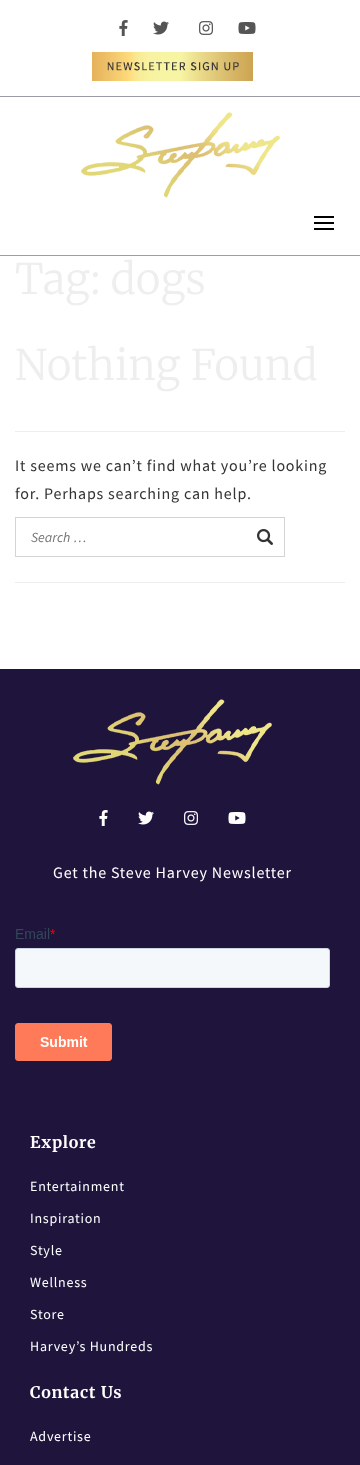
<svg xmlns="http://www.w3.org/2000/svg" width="360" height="1465">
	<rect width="100%" height="100%" fill="#FFFFFF" />
	<rect x="0" y="96" width="360" height="1" fill="#9D9AA8" />
	<image x="119" y="20" width="9" height="16" href="assets/img1.png" />
	<image x="153" y="21" width="16" height="14" href="assets/img2.png" />
	<image x="199" y="21" width="14" height="14" href="assets/img3.png" />
	<image x="238" y="22" width="18" height="12" href="assets/img4.png" />
	<image x="92" y="52" width="161" height="29" href="assets/img5.png" />
	<rect x="0" y="255" width="360" height="1" fill="#9F9BA9" />
	<image x="81" y="112" width="199" height="86" href="assets/img6.png" />
	<rect x="314" y="216" width="20" height="2" fill="#000000" />
	<rect x="314" y="222" width="20" height="2" fill="#000000" />
	<rect x="314" y="228" width="20" height="2" fill="#000000" />
	<text x="15" y="294" font-family="Merriweather" font-size="42" font-weight="300" letter-spacing="0.2" fill="#EEEEEE">Tag: dogs</text>
	<rect x="15" y="431" width="330" height="1" fill="#EEEEEE" />
	<text x="15" y="380" font-family="Merriweather" font-size="42" font-weight="300" letter-spacing="0.2" fill="#EEEEEE">Nothing Found</text>
	<g font-family="Source Sans Pro" font-size="16" letter-spacing="0.8" fill="#333333">
		<text x="15" y="471">It seems we can’t find what you’re looking</text>
		<text x="15" y="499">for. Perhaps searching can help.</text>
	</g>
	<rect x="15.5" y="517.5" width="269" height="39" fill="none" stroke="#D4D4D4" />
	<text x="31" y="542" font-family="Source Sans Pro" font-size="14" font-style="italic" fill="#757575">Search …</text>
	<image x="257" y="529" width="16" height="16" href="assets/img7.png" />
	<rect x="15" y="582" width="330" height="1" fill="#EEEEEE" />
	<rect x="0" y="669" width="360" height="796" fill="#1E143C" />
	<image x="73" y="699" width="199" height="86" href="assets/img8.png" />
	<image x="99" y="810" width="9" height="16" href="assets/img9.png" />
	<image x="138" y="811" width="16" height="14" href="assets/img10.png" />
	<image x="184" y="811" width="14" height="14" href="assets/img11.png" />
	<image x="228" y="812" width="18" height="12" href="assets/img12.png" />
	<text x="53" y="878" font-family="Source Sans Pro" font-size="16" letter-spacing="0.8" fill="#FFFFFF">Get the Steve Harvey Newsletter</text>
	<image x="15" y="928" width="315" height="133" href="assets/img13.png" />
	<text x="30" y="1148" font-family="Merriweather" font-size="16" font-weight="700" letter-spacing="0.8" fill="#FFFFFF">Explore</text>
	<g font-family="Source Sans Pro" font-size="14" letter-spacing="0.75" fill="#FFFFFF">
		<text x="30" y="1191">Entertainment</text>
		<text x="30" y="1223">Inspiration</text>
		<text x="30" y="1255">Style</text>
		<text x="30" y="1287">Wellness</text>
		<text x="30" y="1319">Store</text>
		<text x="30" y="1351">Harvey’s Hundreds</text>
	</g>
	<text x="30" y="1398" font-family="Merriweather" font-size="16" font-weight="700" letter-spacing="0.8" fill="#FFFFFF">Contact Us</text>
	<text x="30" y="1441" font-family="Source Sans Pro" font-size="14" letter-spacing="0.75" fill="#FFFFFF">Advertise</text>
</svg>
